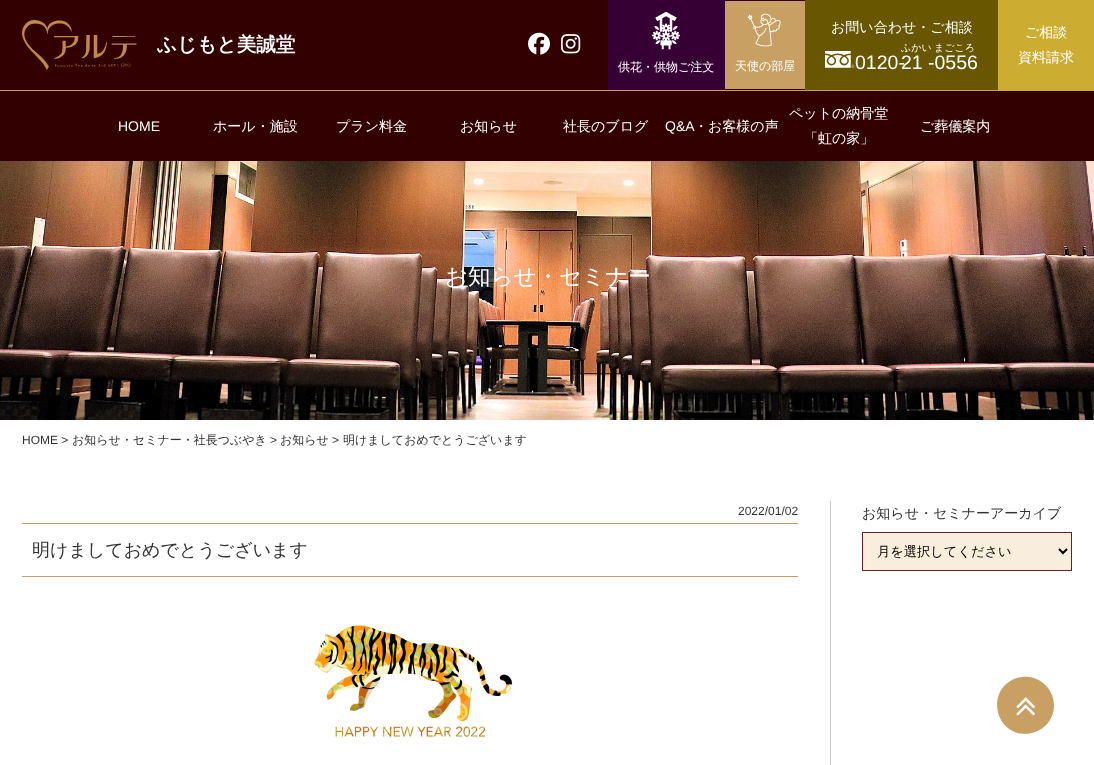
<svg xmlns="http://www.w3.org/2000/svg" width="1094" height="765">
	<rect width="100%" height="100%" fill="#FFFFFF" />
	<rect x="0" y="0" width="805" height="90" fill="#330000" />
	<rect x="0" y="90" width="1094" height="1" fill="#C9A063" />
	<image x="22" y="20" width="115" height="50" href="assets/img1.png" />
	<text x="157" y="51" font-family="WenQuanYi Zen Hei" font-size="19.5" font-weight="700" fill="#FFFFFF">ふじもと美誠堂</text>
	<image x="528" y="32" width="22" height="23" href="assets/img2.png" />
	<image x="561" y="34" width="20" height="20" href="assets/img3.png" />
	<rect x="805" y="0" width="193" height="90" fill="#685700" />
	<text x="831" y="32" font-family="WenQuanYi Zen Hei" font-size="14" font-weight="500" fill="#FFFFFF">お問い合わせ・ご相談</text>
	<image x="825" y="51" width="30" height="17" href="assets/img4.png" />
	<text x="855" y="69" font-family="Liberation Sans" font-size="19.5" fill="#FFFFFF">0120-</text>
	<text x="901" y="51" font-family="WenQuanYi Zen Hei" font-size="10" font-weight="500" fill="#FFFFFF">ふかい</text>
	<text x="901" y="69" font-family="Liberation Sans" font-size="19.5" fill="#FFFFFF">21</text>
	<text x="934" y="51" font-family="WenQuanYi Zen Hei" font-size="10" font-weight="500" fill="#FFFFFF">まごころ</text>
	<text x="928" y="69" font-family="Liberation Sans" font-size="19.5" fill="#FFFFFF">-0556</text>
	<rect x="998" y="0" width="96" height="90" fill="#CCAD32" />
	<g font-family="WenQuanYi Zen Hei" font-size="14" font-weight="500" fill="#FFFFFF">
		<text x="1025" y="37">ご相談</text>
		<text x="1018" y="62">資料請求</text>
	</g>
	<rect x="608" y="0" width="117" height="90" fill="#360035" />
	<image x="652" y="12" width="28" height="38" href="assets/img5.png" />
	<text x="618" y="71" font-family="WenQuanYi Zen Hei" font-size="12" font-weight="500" fill="#FFFFFF">供花・供物ご注文</text>
	<rect x="725" y="1" width="80" height="88" fill="#C9A063" />
	<image x="747" y="13" width="34" height="34" href="assets/img6.png" />
	<text x="735" y="70" font-family="WenQuanYi Zen Hei" font-size="12" font-weight="500" fill="#FFFFFF">天使の部屋</text>
	<rect x="0" y="91" width="1094" height="70" fill="#330000" />
	<text x="118" y="131" font-family="Liberation Sans" font-size="14" fill="#FFFFFF">HOME</text>
	<g font-family="WenQuanYi Zen Hei" font-size="14" font-weight="500" fill="#FFFFFF">
		<text x="213" y="131">ホール・施設</text>
		<text x="336" y="131">プラン料金</text>
		<text x="460" y="131">お知らせ</text>
		<text x="563" y="131">社長のブログ</text>
	</g>
	<text x="665" y="131" font-family="Liberation Sans" font-size="14" fill="#FFFFFF">Q&amp;A</text>
	<g font-family="WenQuanYi Zen Hei" font-size="14" font-weight="500" fill="#FFFFFF">
		<text x="694" y="131">・お客様の声</text>
		<text x="789" y="118">ペットの納骨堂</text>
		<text x="804" y="143">「虹の家」</text>
		<text x="920" y="131">ご葬儀案内</text>
	</g>
	<image x="0" y="161" width="1094" height="259" href="assets/img7.png" />
	<text x="445" y="284" font-family="WenQuanYi Zen Hei" font-size="22.5" font-weight="500" fill="#FFFFFF">お知らせ・セミナー</text>
	<text x="22" y="444" font-family="Liberation Sans" font-size="12" fill="#333333">HOME &gt;</text>
	<text x="72" y="444" font-family="WenQuanYi Zen Hei" font-size="12" font-weight="500" fill="#333333">お知らせ・セミナー・社長つぶやき</text>
	<text x="270" y="444" font-family="Liberation Sans" font-size="12" fill="#333333">&gt;</text>
	<text x="280" y="444" font-family="WenQuanYi Zen Hei" font-size="12" font-weight="500" fill="#333333">お知らせ</text>
	<text x="332" y="444" font-family="Liberation Sans" font-size="12" fill="#333333">&gt;</text>
	<text x="343" y="444" font-family="WenQuanYi Zen Hei" font-size="12" font-weight="500" fill="#333333">明けましておめでとうございます</text>
	<rect x="830" y="501" width="1" height="264" fill="#CCCCCC" />
	<text x="738" y="515" font-family="Liberation Sans" font-size="12" fill="#333333">2022/01/02</text>
	<rect x="22" y="523" width="776" height="1" fill="#C9A063" />
	<rect x="22" y="576" width="776" height="1" fill="#C9A063" />
	<text x="32" y="556" font-family="WenQuanYi Zen Hei" font-size="18" font-weight="500" fill="#333333">明けましておめでとうございます</text>
	<image x="314" y="625" width="199" height="112" href="assets/img8.png" />
	<text x="862" y="518" font-family="WenQuanYi Zen Hei" font-size="14" font-weight="500" fill="#333333">お知らせ・セミナーアーカイブ</text>
	<rect x="862.5" y="532.5" width="209" height="38" fill="#F9EEDC" stroke="#691F29" />
	<path d="M1059 549L1063 553L1067 549" fill="none" stroke="#000000" stroke-width="2" />
	<text x="877" y="556" font-family="WenQuanYi Zen Hei" font-size="13.25" font-weight="500" fill="#000000">月を選択してください</text>
	<path d="M1050 691C1053 696 1054 701 1054 707C1052 735 1015 744 1001 720C998 715 997 709 997 703C999 675 1036 667 1050 691Z" fill="#C9A063" />
	<image x="1016" y="697" width="19" height="19" href="assets/img9.png" />
</svg>
